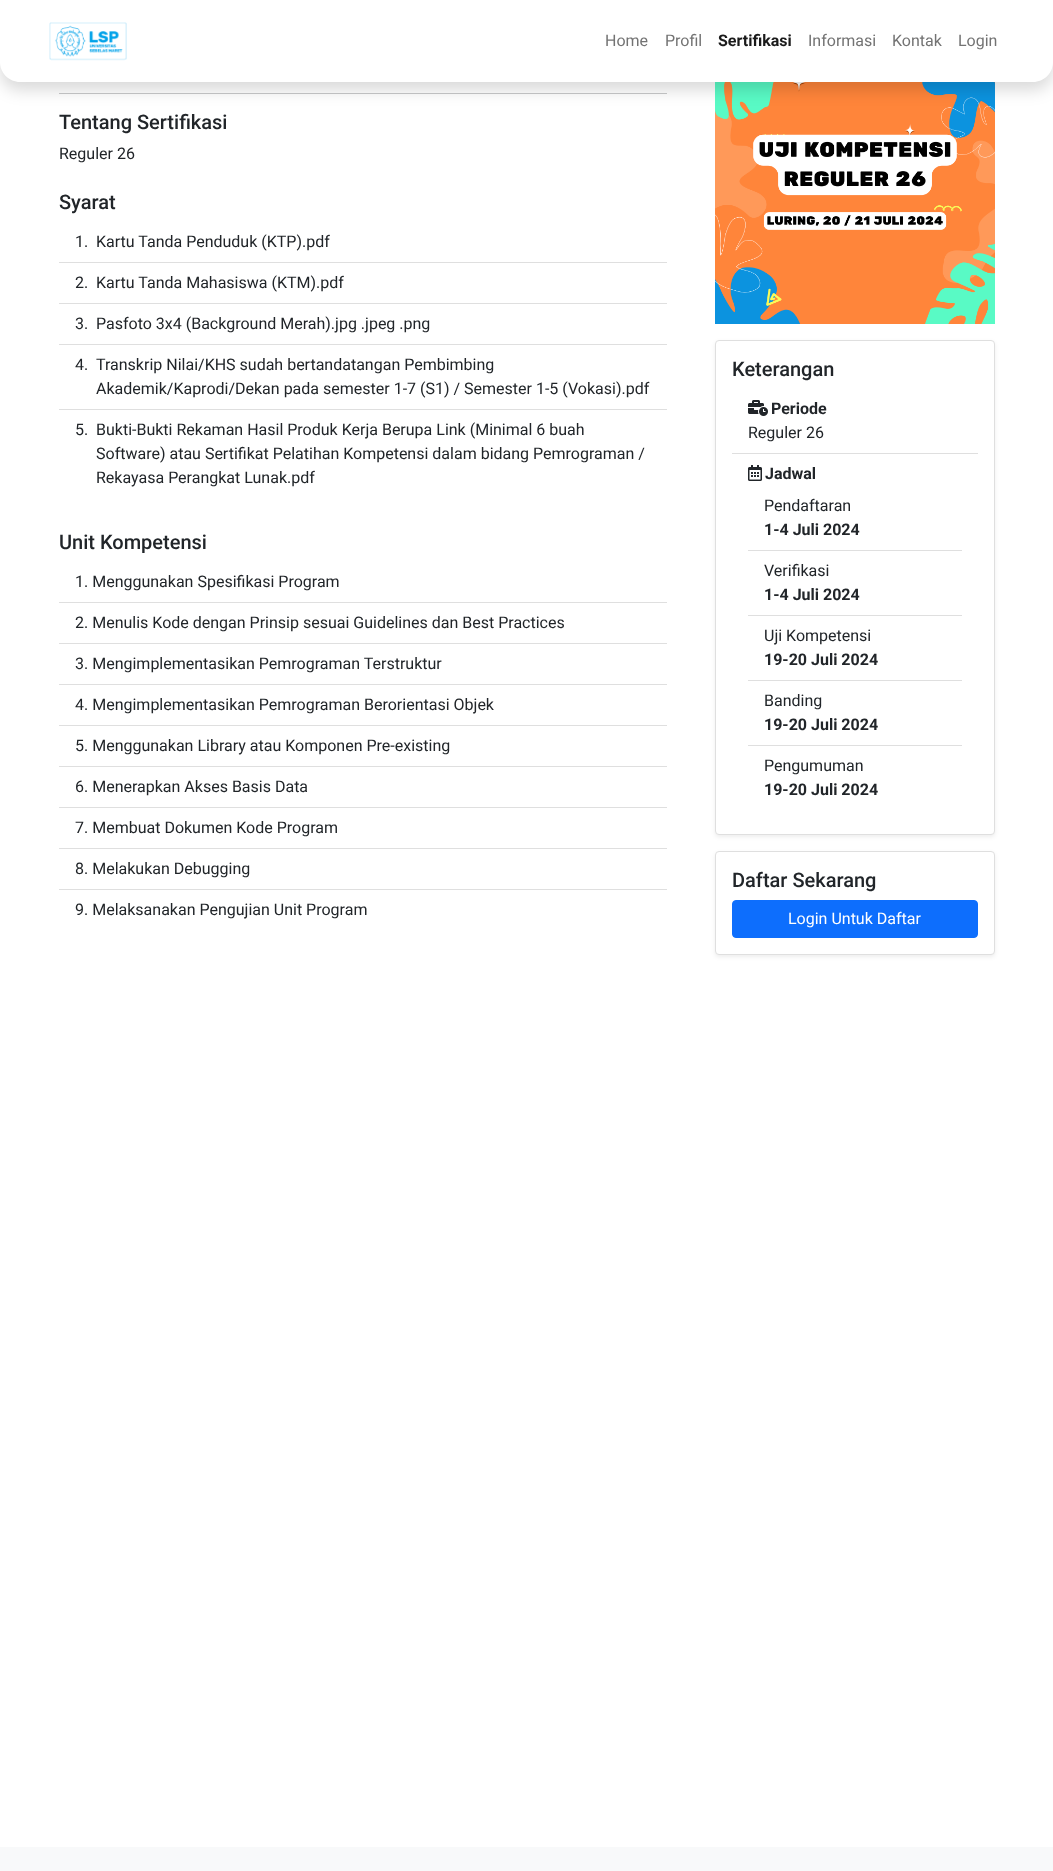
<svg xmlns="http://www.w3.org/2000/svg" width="1053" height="1871">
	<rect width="100%" height="100%" fill="#FFFFFF" />
	<rect x="59" y="93" width="608" height="1" fill="#C8C9CA" />
	<image x="715" y="82" width="280" height="242" href="assets/img2.png" />
	<rect x="0" y="8" width="1053" height="82" rx="20" fill="#000000" fill-opacity="0.15" filter="blur(8px)" />
	<path d="M0 0H1053V62C1053 73 1044 82 1033 82H20C9 82 0 73 0 62Z" fill="#FFFFFF" />
	<image x="49" y="22" width="78" height="39" href="assets/img1.png" />
	<g font-family="Roboto" font-size="16" fill="#737373">
		<text x="605" y="46">Home</text>
		<text x="665" y="46">Profil</text>
	</g>
	<text x="718" y="46" font-family="Roboto" font-size="16" font-weight="700" fill="#1A1A1A">Sertifikasi</text>
	<g font-family="Roboto" font-size="16" fill="#737373">
		<text x="808" y="46">Informasi</text>
		<text x="892" y="46">Kontak</text>
		<text x="958" y="46">Login</text>
	</g>
	<text x="59" y="129" font-family="Roboto" font-size="20" font-weight="500" fill="#212529">Tentang Sertifikasi</text>
	<text x="59" y="159" font-family="Roboto" font-size="16" fill="#212529">Reguler 26</text>
	<text x="59" y="209" font-family="Roboto" font-size="20" font-weight="500" fill="#212529">Syarat</text>
	<rect x="59" y="262" width="608" height="1" fill="#DFDFDF" />
	<g font-family="Roboto" font-size="16" fill="#212529">
		<text x="75" y="247">1.</text>
		<text x="96" y="247">Kartu Tanda Penduduk (KTP).pdf</text>
	</g>
	<rect x="59" y="303" width="608" height="1" fill="#DFDFDF" />
	<g font-family="Roboto" font-size="16" fill="#212529">
		<text x="75" y="288">2.</text>
		<text x="96" y="288">Kartu Tanda Mahasiswa (KTM).pdf</text>
	</g>
	<rect x="59" y="344" width="608" height="1" fill="#DFDFDF" />
	<g font-family="Roboto" font-size="16" fill="#212529">
		<text x="75" y="329">3.</text>
		<text x="96" y="329">Pasfoto 3x4 (Background Merah).jpg .jpeg .png</text>
	</g>
	<rect x="59" y="409" width="608" height="1" fill="#DFDFDF" />
	<g font-family="Roboto" font-size="16" fill="#212529">
		<text x="75" y="370">4.</text>
		<text x="96" y="370">Transkrip Nilai/KHS sudah bertandatangan Pembimbing</text>
		<text x="96" y="394">Akademik/Kaprodi/Dekan pada semester 1-7 (S1) / Semester 1-5 (Vokasi).pdf</text>
		<text x="75" y="435">5.</text>
		<text x="96" y="435">Bukti-Bukti Rekaman Hasil Produk Kerja Berupa Link (Minimal 6 buah</text>
		<text x="96" y="459">Software) atau Sertifikat Pelatihan Kompetensi dalam bidang Pemrograman /</text>
		<text x="96" y="483">Rekayasa Perangkat Lunak.pdf</text>
	</g>
	<text x="59" y="549" font-family="Roboto" font-size="20" font-weight="500" fill="#212529">Unit Kompetensi</text>
	<rect x="59" y="602" width="608" height="1" fill="#DFDFDF" />
	<text x="75" y="587" font-family="Roboto" font-size="16" fill="#212529">1. Menggunakan Spesifikasi Program</text>
	<rect x="59" y="643" width="608" height="1" fill="#DFDFDF" />
	<text x="75" y="628" font-family="Roboto" font-size="16" fill="#212529">2. Menulis Kode dengan Prinsip sesuai Guidelines dan Best Practices</text>
	<rect x="59" y="684" width="608" height="1" fill="#DFDFDF" />
	<text x="75" y="669" font-family="Roboto" font-size="16" fill="#212529">3. Mengimplementasikan Pemrograman Terstruktur</text>
	<rect x="59" y="725" width="608" height="1" fill="#DFDFDF" />
	<text x="75" y="710" font-family="Roboto" font-size="16" fill="#212529">4. Mengimplementasikan Pemrograman Berorientasi Objek</text>
	<rect x="59" y="766" width="608" height="1" fill="#DFDFDF" />
	<text x="75" y="751" font-family="Roboto" font-size="16" fill="#212529">5. Menggunakan Library atau Komponen Pre-existing</text>
	<rect x="59" y="807" width="608" height="1" fill="#DFDFDF" />
	<text x="75" y="792" font-family="Roboto" font-size="16" fill="#212529">6. Menerapkan Akses Basis Data</text>
	<rect x="59" y="848" width="608" height="1" fill="#DFDFDF" />
	<text x="75" y="833" font-family="Roboto" font-size="16" fill="#212529">7. Membuat Dokumen Kode Program</text>
	<rect x="59" y="889" width="608" height="1" fill="#DFDFDF" />
	<g font-family="Roboto" font-size="16" fill="#212529">
		<text x="75" y="874">8. Melakukan Debugging</text>
		<text x="75" y="915">9. Melaksanakan Pengujian Unit Program</text>
	</g>
	<rect x="715" y="342" width="280" height="495" rx="4" fill="#000000" fill-opacity="0.07" filter="blur(2px)" />
	<rect x="715.5" y="340.5" width="279" height="494" rx="3.5" fill="#FFFFFF" stroke="#DFDFDF" />
	<text x="732" y="376" font-family="Roboto" font-size="20" font-weight="500" fill="#212529">Keterangan</text>
	<rect x="732" y="453" width="246" height="1" fill="#DFDFDF" />
	<image x="748" y="400" width="20" height="16" href="assets/img3.png" />
	<text x="771" y="414" font-family="Roboto" font-size="16" font-weight="700" fill="#212529">Periode</text>
	<text x="748" y="438" font-family="Roboto" font-size="16" fill="#212529">Reguler 26</text>
	<image x="748" y="465" width="14" height="16" href="assets/img4.png" />
	<text x="765" y="479" font-family="Roboto" font-size="16" font-weight="700" fill="#212529">Jadwal</text>
	<rect x="748" y="550" width="214" height="1" fill="#DFDFDF" />
	<text x="764" y="511" font-family="Roboto" font-size="16" fill="#212529">Pendaftaran</text>
	<text x="764" y="535" font-family="Roboto" font-size="16" font-weight="700" fill="#212529">1-4 Juli 2024</text>
	<rect x="748" y="615" width="214" height="1" fill="#DFDFDF" />
	<text x="764" y="576" font-family="Roboto" font-size="16" fill="#212529">Verifikasi</text>
	<text x="764" y="600" font-family="Roboto" font-size="16" font-weight="700" fill="#212529">1-4 Juli 2024</text>
	<rect x="748" y="680" width="214" height="1" fill="#DFDFDF" />
	<text x="764" y="641" font-family="Roboto" font-size="16" fill="#212529">Uji Kompetensi</text>
	<text x="764" y="665" font-family="Roboto" font-size="16" font-weight="700" fill="#212529">19-20 Juli 2024</text>
	<rect x="748" y="745" width="214" height="1" fill="#DFDFDF" />
	<text x="764" y="706" font-family="Roboto" font-size="16" fill="#212529">Banding</text>
	<text x="764" y="730" font-family="Roboto" font-size="16" font-weight="700" fill="#212529">19-20 Juli 2024</text>
	<text x="764" y="771" font-family="Roboto" font-size="16" fill="#212529">Pengumuman</text>
	<text x="764" y="795" font-family="Roboto" font-size="16" font-weight="700" fill="#212529">19-20 Juli 2024</text>
	<rect x="715" y="853" width="280" height="104" rx="4" fill="#000000" fill-opacity="0.07" filter="blur(2px)" />
	<rect x="715.5" y="851.5" width="279" height="103" rx="3.5" fill="#FFFFFF" stroke="#DFDFDF" />
	<text x="732" y="887" font-family="Roboto" font-size="20" font-weight="500" fill="#212529">Daftar Sekarang</text>
	<rect x="732.5" y="900.5" width="245" height="37" rx="3.5" fill="#0D6EFD" stroke="#0D6EFD" />
	<text x="788" y="924" font-family="Roboto" font-size="16" fill="#FFFFFF">Login Untuk Daftar</text>
	<rect x="0" y="1847" width="1053" height="24" fill="#F8F9FA" />
</svg>
